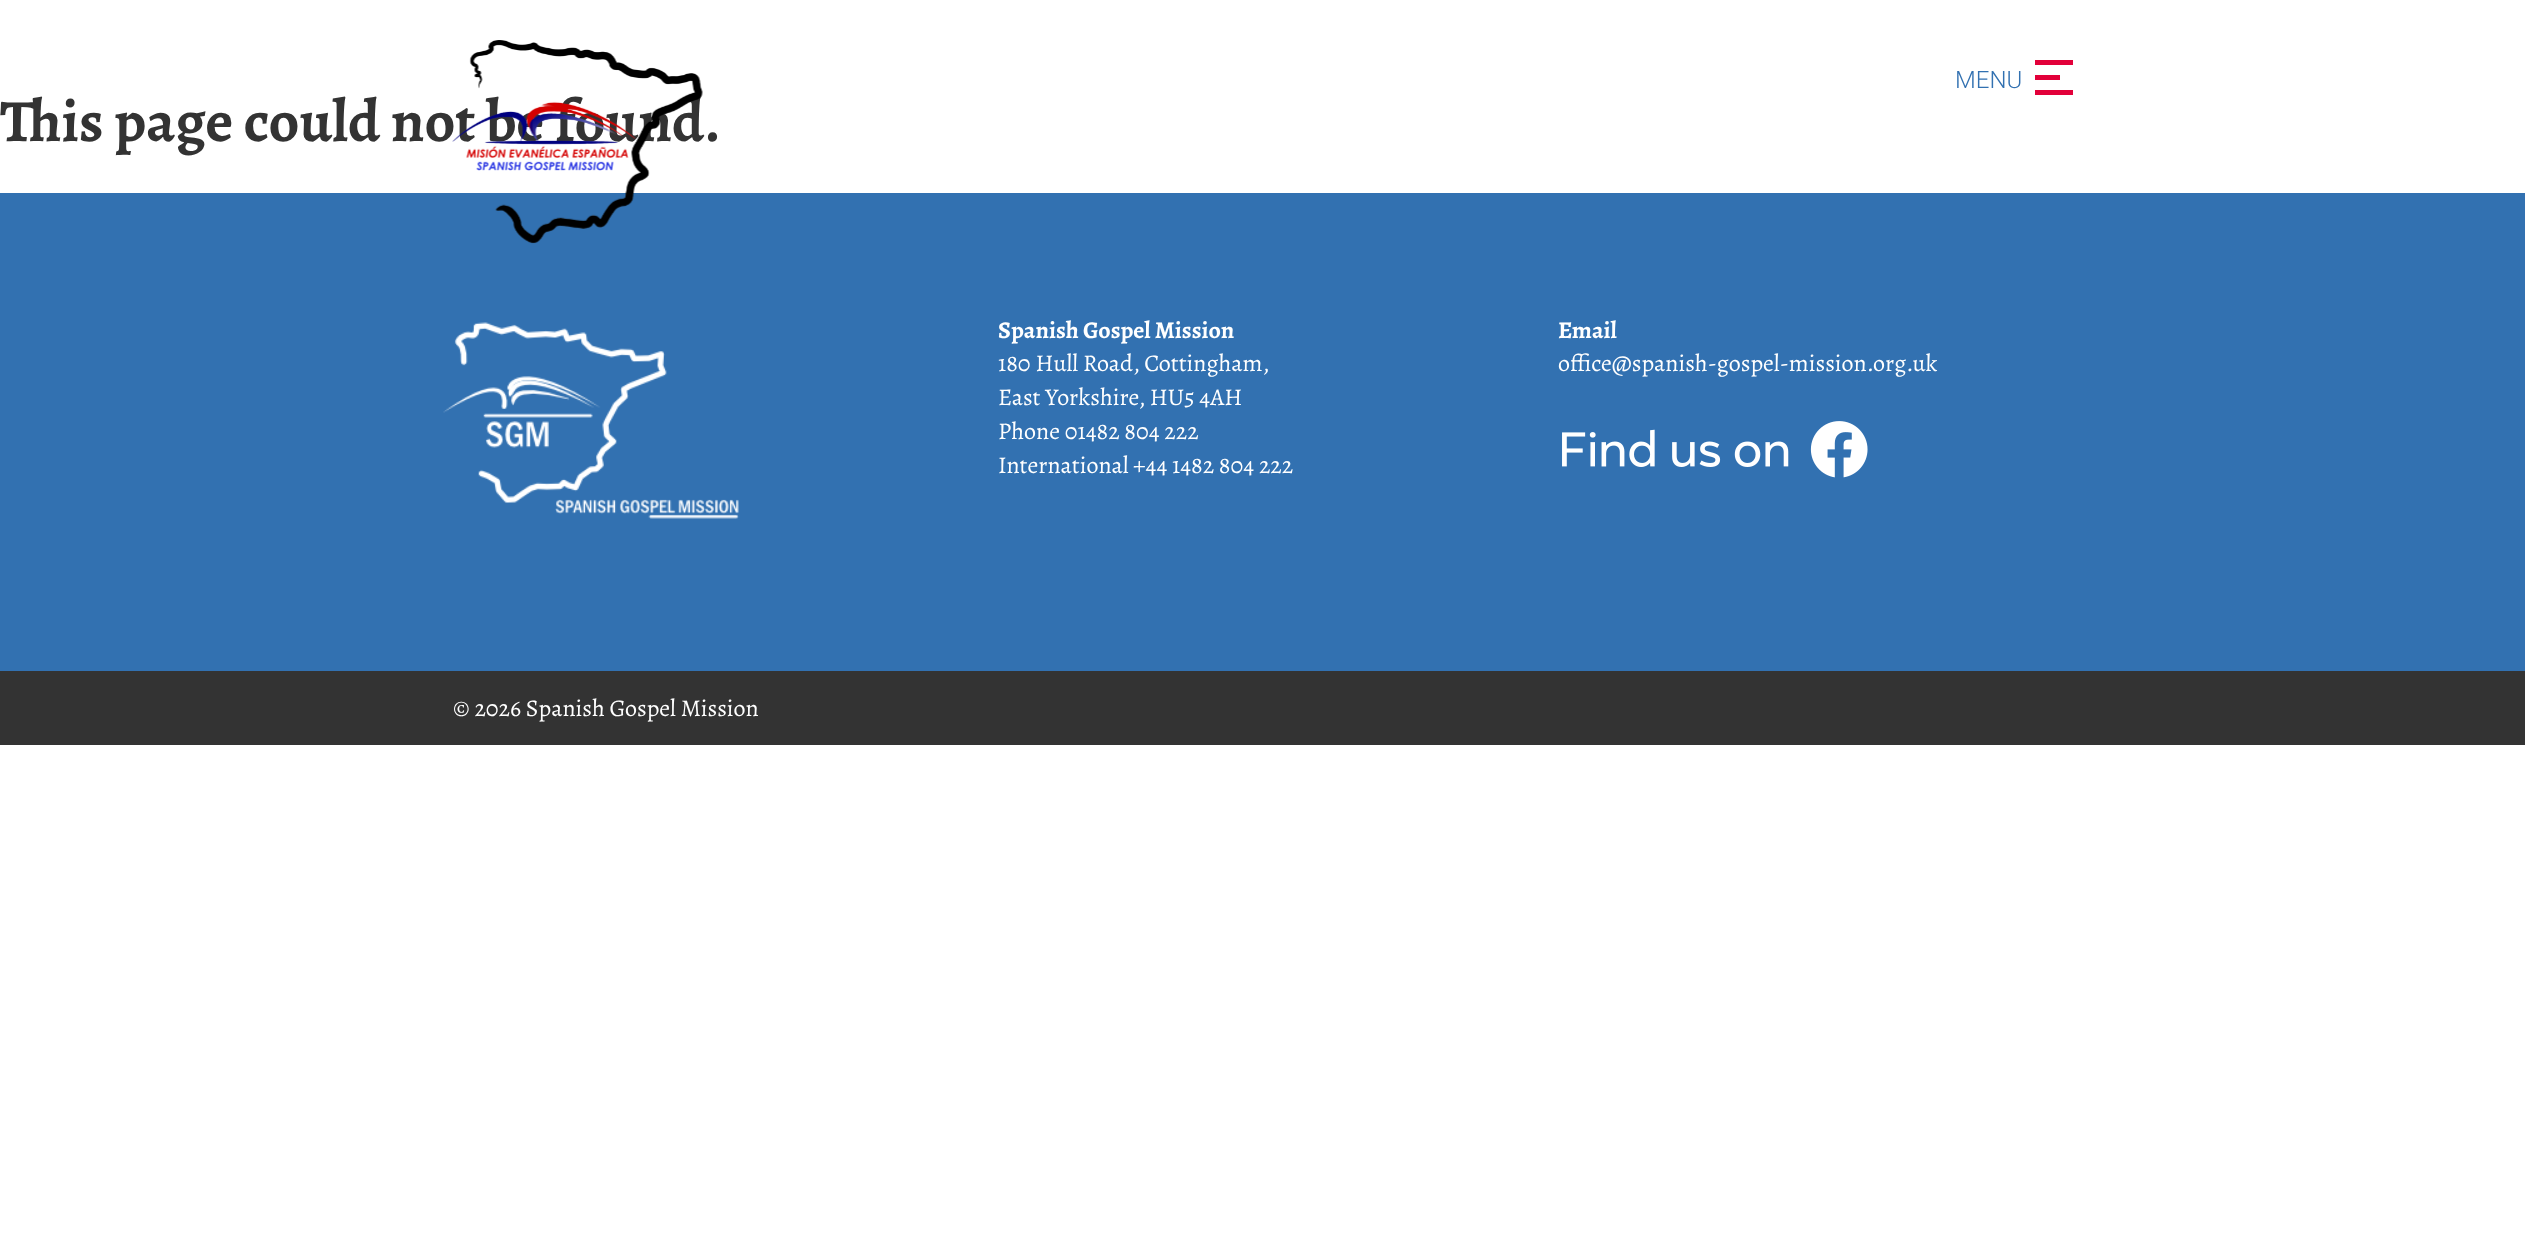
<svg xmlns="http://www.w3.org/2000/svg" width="2525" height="1249">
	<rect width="100%" height="100%" fill="#FFFFFF" />
	<text x="0" y="141" font-family="Alegreya" font-size="60" font-weight="700" fill="#333333">This page could not be found.</text>
	<rect x="0" y="193" width="2525" height="478" fill="#3271B1" />
	<image x="452" y="40" width="251" height="204" href="assets/img1.png" />
	<text x="1955" y="88" font-family="Roboto" font-size="24" font-weight="300" fill="#3271B1">MENU</text>
	<rect x="2035" y="60" width="38" height="5" fill="#E2003A" />
	<rect x="2035" y="75" width="25" height="5" fill="#E2003A" />
	<rect x="2035" y="90" width="38" height="5" fill="#E2003A" />
	<image x="443" y="322" width="296" height="197" href="assets/img2.png" />
	<text x="998" y="338" font-family="Alegreya" font-size="24" font-weight="700" fill="#FFFFFF">Spanish Gospel Mission</text>
	<g font-family="Alegreya" font-size="24" fill="#FFFFFF">
		<text x="998" y="371">180 Hull Road, Cottingham,</text>
		<text x="998" y="405">East Yorkshire, HU5 4AH</text>
		<text x="998" y="439">Phone 01482 804 222</text>
		<text x="998" y="473">International +44 1482 804 222</text>
	</g>
	<text x="1558" y="338" font-family="Alegreya" font-size="24" font-weight="700" fill="#FFFFFF">Email</text>
	<text x="1558" y="371" font-family="Alegreya" font-size="24" fill="#FFFFFF">office@spanish-gospel-mission.org.uk</text>
	<image x="1562" y="421" width="306" height="57" href="assets/img3.png" />
	<rect x="0" y="671" width="2525" height="74" fill="#333333" />
	<text x="453" y="716" font-family="Alegreya" font-size="24" fill="#FFFFFF">© 2026 Spanish Gospel Mission</text>
</svg>
